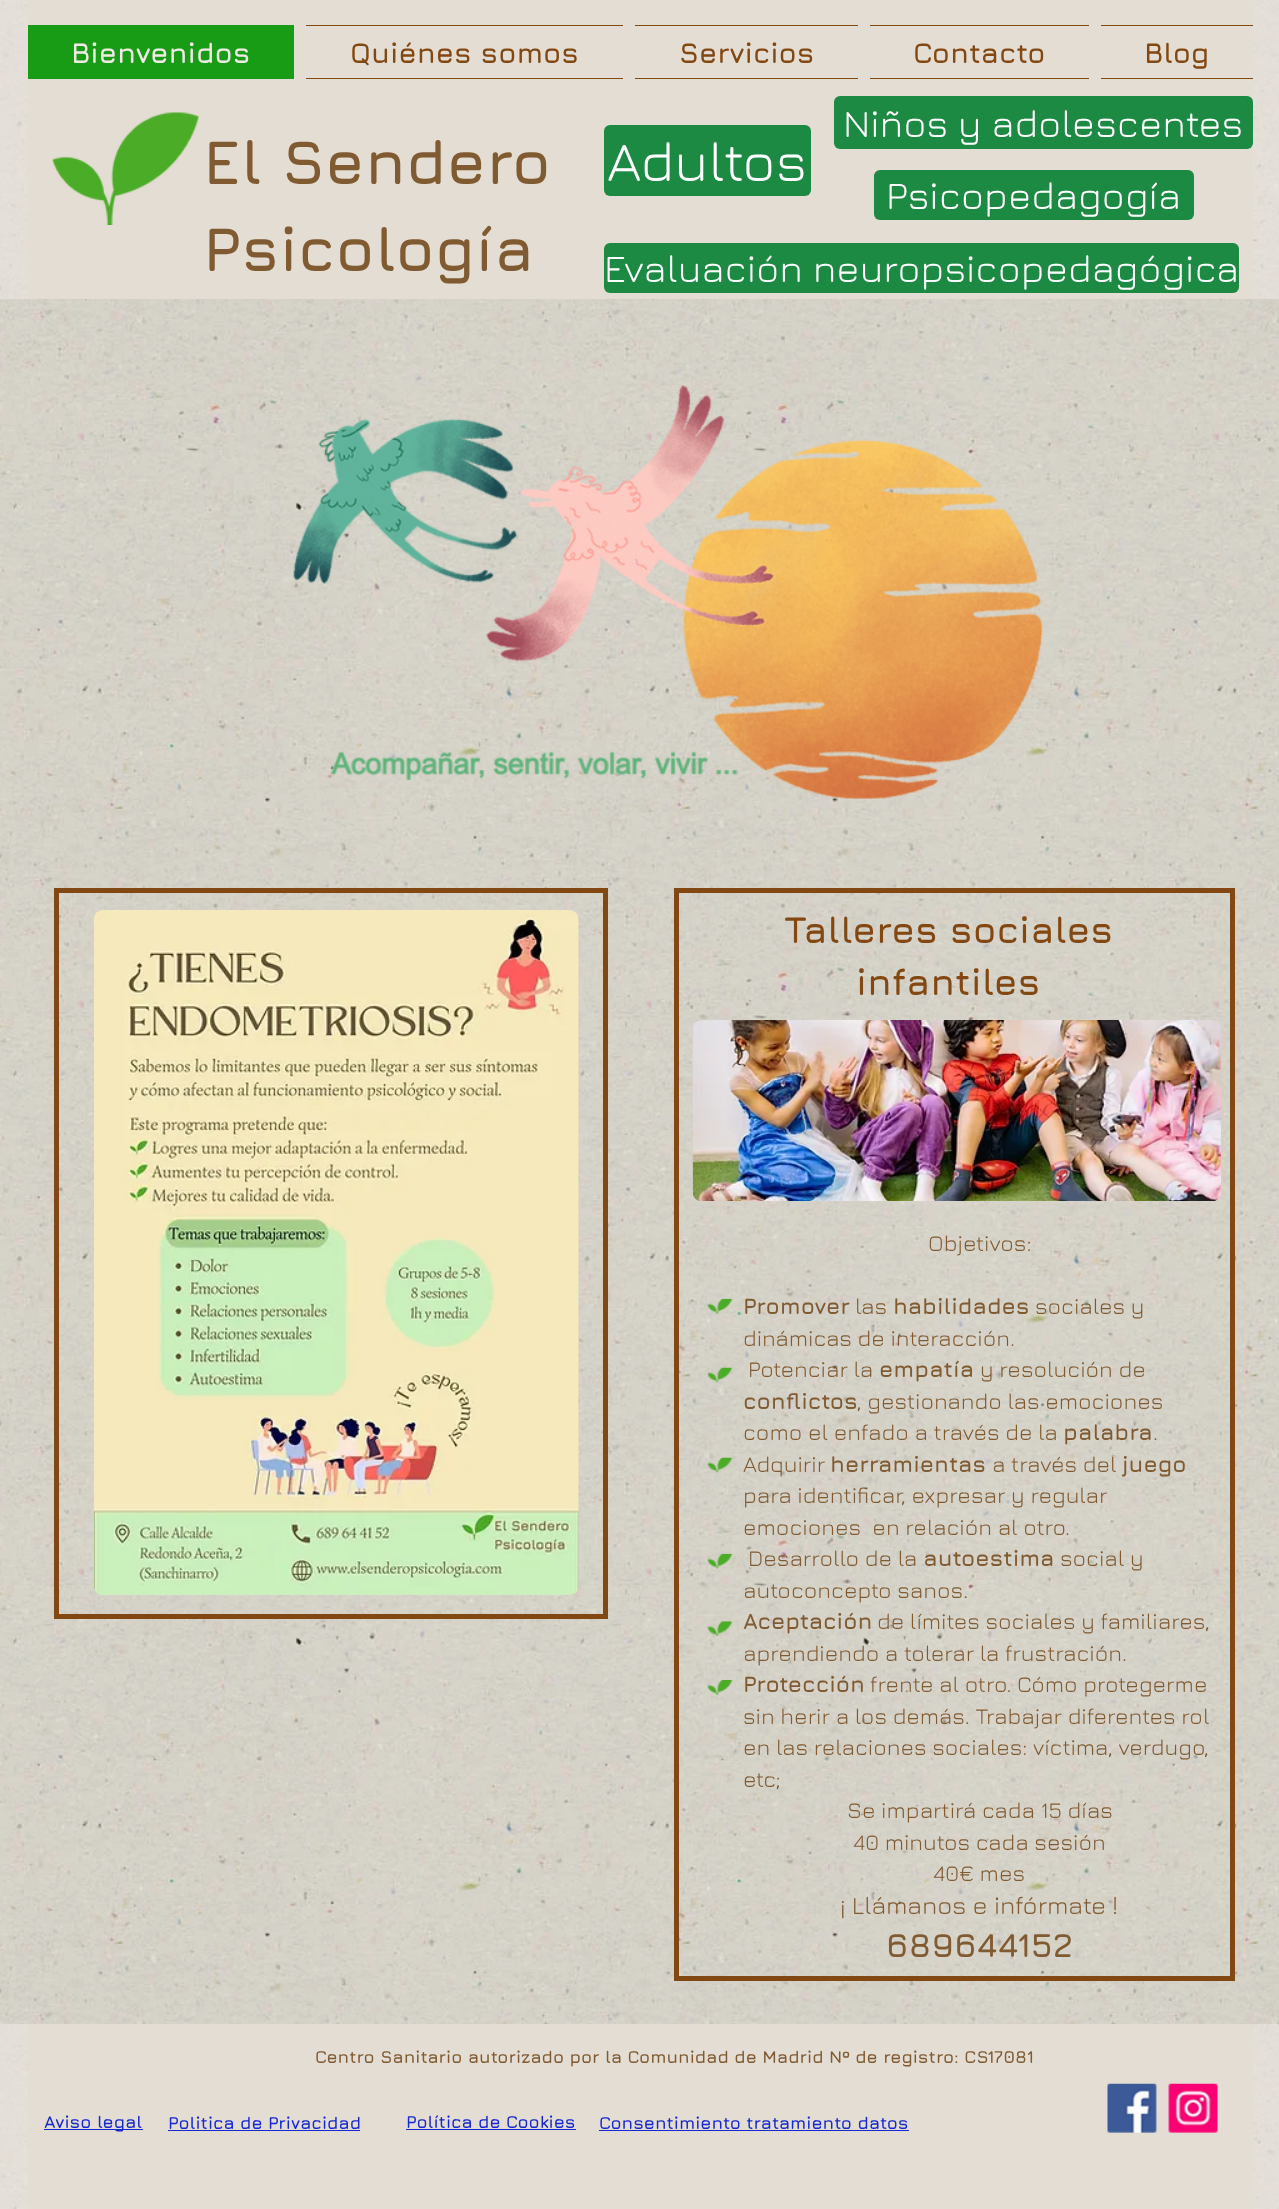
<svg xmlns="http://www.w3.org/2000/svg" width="1279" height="2209">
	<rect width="100%" height="100%" fill="#FFFFFF" />
	<image x="0" y="0" width="1279" height="2209" href="assets/img1.png" />
	<rect x="0" y="0" width="1279" height="299" fill="#F0EAE5" fill-opacity="0.55" />
	<rect x="28" y="0" width="1225" height="299" fill="#E4DDD3" />
	<rect x="28" y="25" width="266" height="54" fill="#189C16" />
	<text x="71" y="63" font-family="Jura" font-size="28.75" font-weight="700" fill="#F0EAE5">Bienvenidos</text>
	<rect x="306" y="25" width="317" height="1" fill="#834811" />
	<rect x="306" y="78" width="317" height="1" fill="#834811" />
	<text x="350" y="63" font-family="Jura" font-size="28.75" font-weight="700" fill="#834811">Quiénes somos</text>
	<rect x="635" y="25" width="223" height="1" fill="#834811" />
	<rect x="635" y="78" width="223" height="1" fill="#834811" />
	<text x="679" y="63" font-family="Jura" font-size="28.75" font-weight="700" fill="#834811">Servicios</text>
	<rect x="870" y="25" width="219" height="1" fill="#834811" />
	<rect x="870" y="78" width="219" height="1" fill="#834811" />
	<text x="913" y="63" font-family="Jura" font-size="28.75" font-weight="700" fill="#834811">Contacto</text>
	<rect x="1101" y="25" width="152" height="1" fill="#834811" />
	<rect x="1101" y="78" width="152" height="1" fill="#834811" />
	<text x="1144" y="63" font-family="Jura" font-size="28.75" font-weight="700" fill="#834811">Blog</text>
	<image x="52" y="112" width="147" height="113" href="assets/img2.png" />
	<g font-family="Jura" font-size="62.5" font-weight="700" fill="#805B32">
		<text x="203" y="184">El Sendero</text>
		<text x="203" y="271">Psicología</text>
	</g>
	<rect x="604" y="125" width="207" height="71" rx="6" fill="#1C8A43" />
	<text x="607" y="181" font-family="Jura" font-size="56" fill="#FFFFFF">Adultos</text>
	<rect x="834" y="96" width="419" height="53" rx="6" fill="#1C8A43" />
	<text x="843" y="137" font-family="Jura" font-size="38.75" fill="#FFFFFF">Niños y adolescentes</text>
	<rect x="874" y="170" width="320" height="50" rx="6" fill="#1C8A43" />
	<text x="886" y="209" font-family="Jura" font-size="38.75" fill="#FFFFFF">Psicopedagogía</text>
	<rect x="604" y="243" width="635" height="50" rx="6" fill="#1C8A43" />
	<text x="604" y="282" font-family="Jura" font-size="38.75" fill="#FFFFFF">Evaluación neuropsicopedagógica</text>
	<image x="293" y="385" width="750" height="414" href="assets/img3.png" />
	<rect x="56.5" y="890.5" width="549" height="726" fill="none" stroke="#834811" stroke-width="5" />
	<image x="94" y="910" width="485" height="685" href="assets/img4.png" />
	<rect x="676.5" y="890.5" width="556" height="1088" fill="none" stroke="#834811" stroke-width="5" />
	<g font-family="Jura" font-size="37.5" font-weight="700" fill="#834811">
		<text x="784" y="943">Talleres sociales</text>
		<text x="856" y="995">infantiles</text>
	</g>
	<image x="692" y="1020" width="529" height="181" href="assets/img5.png" />
	<image x="707" y="1298" width="26" height="16" href="assets/img6.png" />
	<text x="928" y="1251" font-family="Jura" font-size="22.5" fill="#805B32">Objetivos:</text>
	<text x="743" y="1314" font-family="Jura" font-size="22.5" font-weight="700" fill="#805B32">Promover</text>
	<text x="855" y="1314" font-family="Jura" font-size="22.5" fill="#805B32">las</text>
	<text x="893" y="1314" font-family="Jura" font-size="22.5" font-weight="700" fill="#805B32">habilidades</text>
	<g font-family="Jura" font-size="22.5" fill="#805B32">
		<text x="1035" y="1314">sociales y</text>
		<text x="743" y="1346">dinámicas de interacción.</text>
		<text x="748" y="1377">Potenciar la</text>
	</g>
	<text x="879" y="1377" font-family="Jura" font-size="22.5" font-weight="700" fill="#805B32">empatía</text>
	<text x="980" y="1377" font-family="Jura" font-size="22.5" fill="#805B32">y resolución de</text>
	<text x="743" y="1409" font-family="Jura" font-size="22.5" font-weight="700" fill="#805B32">conflictos</text>
	<g font-family="Jura" font-size="22.5" fill="#805B32">
		<text x="857" y="1409">, gestionando las emociones</text>
		<text x="743" y="1440">como el enfado a través de la</text>
	</g>
	<text x="1063" y="1440" font-family="Jura" font-size="22.5" font-weight="700" fill="#805B32">palabra</text>
	<g font-family="Jura" font-size="22.5" fill="#805B32">
		<text x="1153" y="1440">.</text>
		<text x="743" y="1472">Adquirir</text>
	</g>
	<text x="830" y="1472" font-family="Jura" font-size="22.5" font-weight="700" fill="#805B32">herramientas</text>
	<text x="992" y="1472" font-family="Jura" font-size="22.5" fill="#805B32">a través del</text>
	<text x="1122" y="1472" font-family="Jura" font-size="22.5" font-weight="700" fill="#805B32">juego</text>
	<g font-family="Jura" font-size="22.5" fill="#805B32">
		<text x="743" y="1503">para identificar, expresar y regular</text>
		<text x="743" y="1535" xml:space="preserve">emociones  en relación al otro.</text>
		<text x="748" y="1566">Desarrollo de la</text>
	</g>
	<text x="923" y="1566" font-family="Jura" font-size="22.5" font-weight="700" fill="#805B32">autoestima</text>
	<g font-family="Jura" font-size="22.5" fill="#805B32">
		<text x="1060" y="1566">social y</text>
		<text x="743" y="1598">autoconcepto sanos.</text>
	</g>
	<text x="743" y="1629" font-family="Jura" font-size="22.5" font-weight="700" fill="#805B32">Aceptación</text>
	<g font-family="Jura" font-size="22.5" fill="#805B32">
		<text x="877" y="1629">de límites sociales y familiares,</text>
		<text x="743" y="1661">aprendiendo a tolerar la frustración.</text>
	</g>
	<text x="743" y="1692" font-family="Jura" font-size="22.5" font-weight="700" fill="#805B32">Protección</text>
	<g font-family="Jura" font-size="22.5" fill="#805B32">
		<text x="870" y="1692">frente al otro. Cómo protegerme</text>
		<text x="743" y="1724">sin herir a los demás. Trabajar diferentes rol</text>
		<text x="743" y="1755">en las relaciones sociales: víctima, verdugo,</text>
		<text x="743" y="1787">etc;</text>
		<text x="847" y="1818">Se impartirá cada 15 días</text>
		<text x="853" y="1850">40 minutos cada sesión</text>
		<text x="933" y="1881">40€ mes</text>
	</g>
	<text x="840" y="1914" font-family="Jura" font-size="25" fill="#805B32">¡ Llámanos e infórmate !</text>
	<text x="886" y="1957" font-family="Jura" font-size="33.75" font-weight="700" fill="#805B32">689644152</text>
	<image x="707" y="1367" width="26" height="16" href="assets/img7.png" />
	<image x="707" y="1457" width="26" height="16" href="assets/img8.png" />
	<image x="707" y="1553" width="26" height="16" href="assets/img9.png" />
	<image x="707" y="1621" width="26" height="16" href="assets/img10.png" />
	<image x="707" y="1680" width="26" height="15" href="assets/img11.png" />
	<rect x="0" y="2024" width="1279" height="185" fill="#F0EAE5" fill-opacity="0.55" />
	<rect x="28" y="2024" width="1225" height="185" fill="#E4DDD3" />
	<text x="315" y="2063" font-family="Jura" font-size="17.5" font-weight="700" fill="#805B32">Centro Sanitario autorizado por la Comunidad de Madrid Nº de registro: CS17081</text>
	<rect x="44" y="2129" width="99" height="1" fill="#1528D1" />
	<g font-family="Jura" font-size="17.5" font-weight="700" fill="#1528D1">
		<text x="44" y="2128">Aviso legal</text>
		<text x="168" y="2129">Politica de Privacidad</text>
	</g>
	<rect x="168" y="2130" width="192" height="1" fill="#1528D1" />
	<text x="406" y="2128" font-family="Jura" font-size="17.5" font-weight="700" fill="#1528D1">Política de Cookies</text>
	<rect x="406" y="2129" width="170" height="1" fill="#1528D1" />
	<text x="599" y="2129" font-family="Jura" font-size="17.5" font-weight="700" fill="#1528D1">Consentimiento tratamiento datos</text>
	<rect x="599" y="2130" width="310" height="1" fill="#1528D1" />
	<image x="1107" y="2083" width="50" height="50" href="assets/img12.png" />
	<image x="1168" y="2083" width="50" height="50" href="assets/img13.png" />
</svg>
